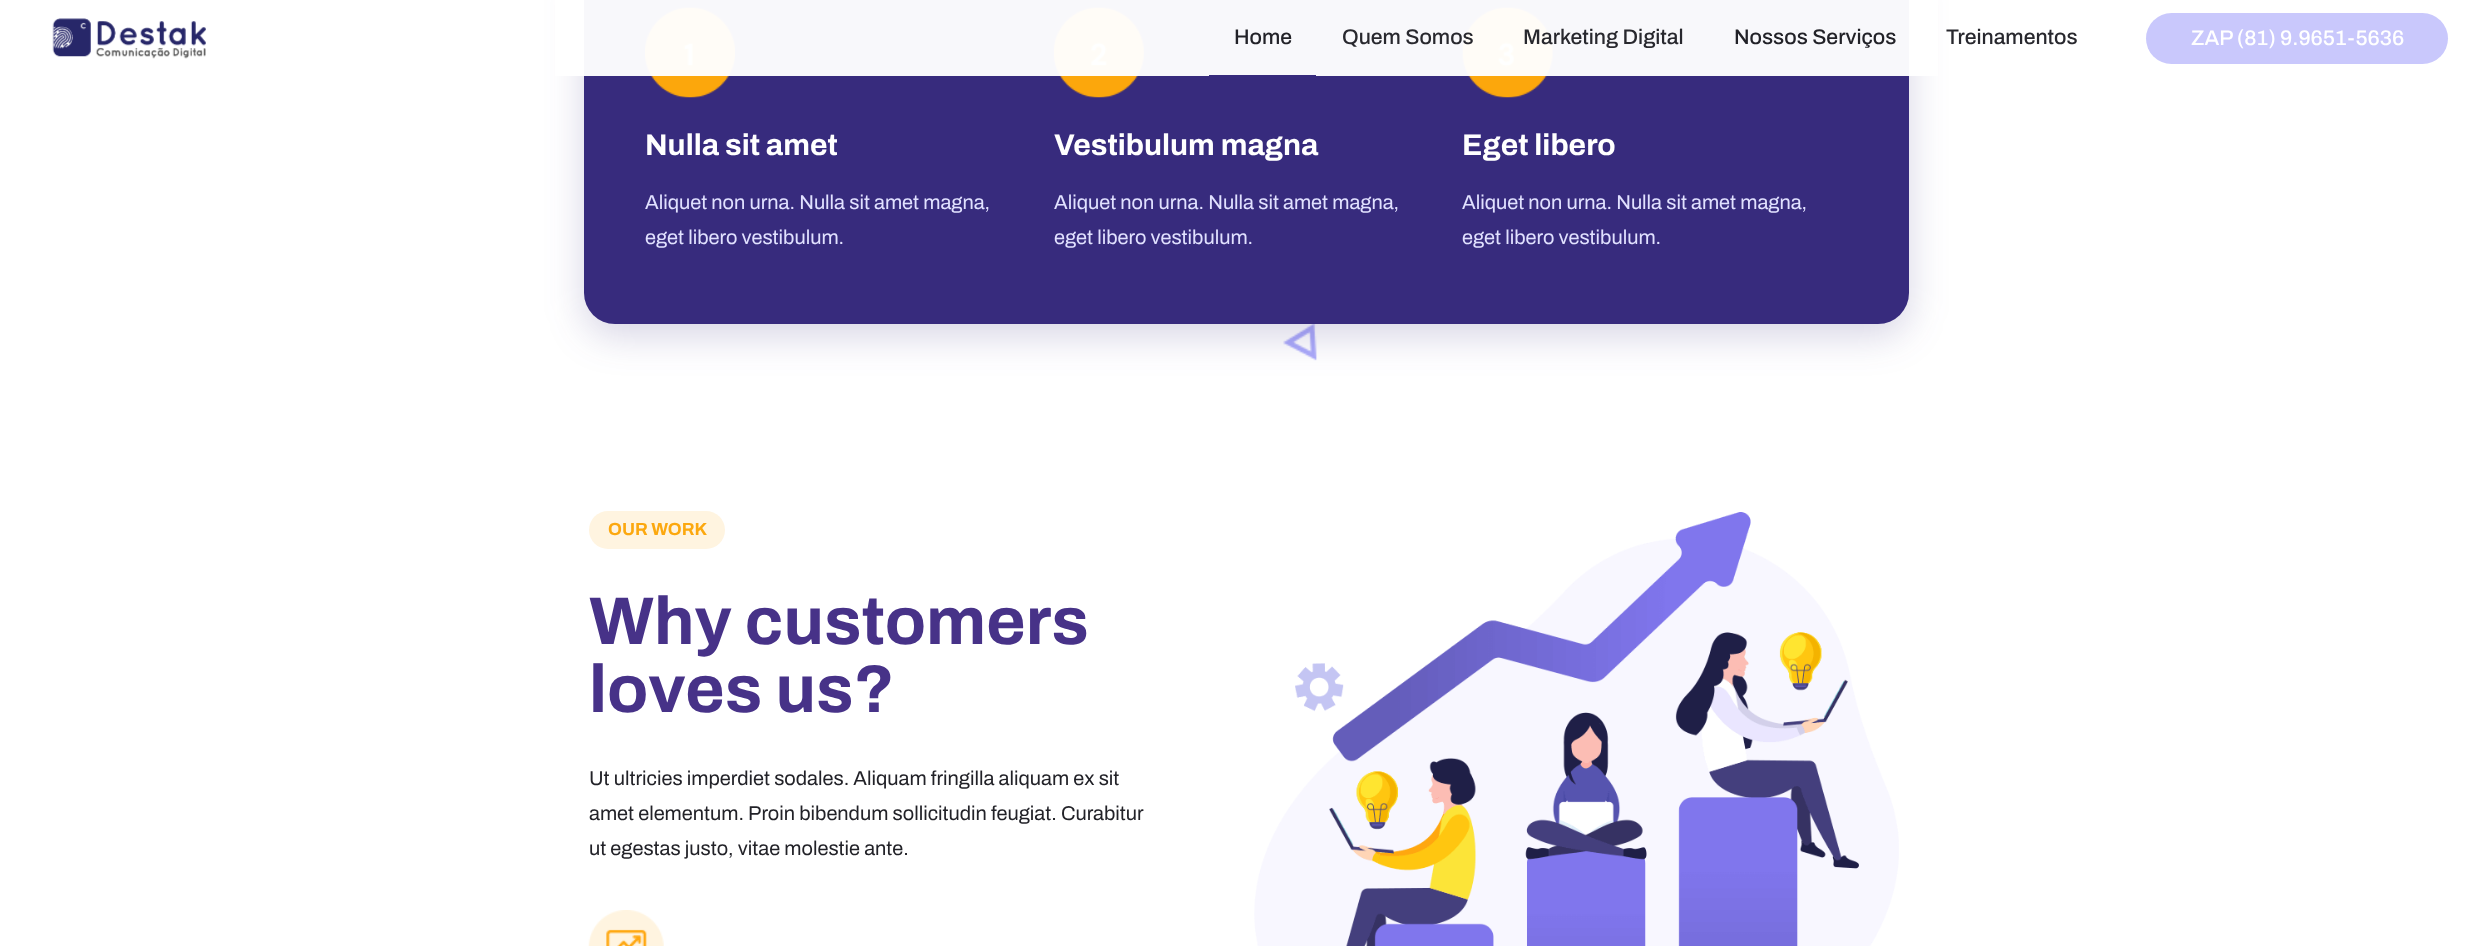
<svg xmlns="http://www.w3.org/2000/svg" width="2491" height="946">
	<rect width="100%" height="100%" fill="#FFFFFF" />
	<image x="1283" y="324" width="34" height="37" href="assets/img5.png" />
	<rect x="584" y="-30" width="1325" height="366" rx="31" fill="#372B7D" fill-opacity="0.2" filter="blur(19px)" />
	<rect x="584" y="-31" width="1325" height="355" rx="31" fill="#372B7D" />
	<image x="645" y="7" width="90" height="91" href="assets/img2.png" />
	<image x="1053" y="7" width="91" height="91" href="assets/img3.png" />
	<image x="1462" y="7" width="91" height="91" href="assets/img4.png" />
	<rect x="555" y="0" width="1383" height="76" fill="#FFFFFF" fill-opacity="0.97" />
	<image x="52" y="18" width="154" height="41" href="assets/img1.png" />
	<text x="1234" y="44" font-family="Archivo" font-size="21.25" font-weight="500" fill="#222228">Home</text>
	<rect x="1209" y="75" width="107" height="1" fill="#372B7D" />
	<g font-family="Archivo" font-size="21.25" font-weight="500" fill="#28282E">
		<text x="1342" y="44">Quem Somos</text>
		<text x="1523" y="44">Marketing Digital</text>
	</g>
	<text x="1734" y="44" font-family="Archivo" font-size="21.25" font-weight="500" fill="#222228">Nossos Serviços</text>
	<text x="1946" y="44" font-family="Archivo" font-size="21.25" font-weight="500" fill="#28282E">Treinamentos</text>
	<rect x="2146" y="13" width="302" height="51" rx="25.5" fill="#C7C6FC" />
	<rect x="2146" y="13" width="302" height="51" fill="#FFFFFF" fill-opacity="0.05" />
	<text x="2191" y="45" font-family="Archivo" font-size="21.25" font-weight="500" fill="#FFFFFF">ZAP (81) 9.9651-5636</text>
	<text x="645" y="155" font-family="Archivo" font-size="30" font-weight="700" fill="#FFFFFF">Nulla sit amet</text>
	<g font-family="Archivo" font-size="20" fill="#E1E1FF">
		<text x="645" y="209">Aliquet non urna. Nulla sit amet magna,</text>
		<text x="645" y="244">eget libero vestibulum.</text>
	</g>
	<text x="1054" y="155" font-family="Archivo" font-size="30" font-weight="700" fill="#FFFFFF">Vestibulum magna</text>
	<g font-family="Archivo" font-size="20" fill="#E1E1FF">
		<text x="1054" y="209">Aliquet non urna. Nulla sit amet magna,</text>
		<text x="1054" y="244">eget libero vestibulum.</text>
	</g>
	<text x="1462" y="155" font-family="Archivo" font-size="30" font-weight="700" fill="#FFFFFF">Eget libero</text>
	<g font-family="Archivo" font-size="20" fill="#E1E1FF">
		<text x="1462" y="209">Aliquet non urna. Nulla sit amet magna,</text>
		<text x="1462" y="244">eget libero vestibulum.</text>
	</g>
	<rect x="589" y="511" width="136" height="38" rx="19" fill="#FFF4E0" />
	<text x="608" y="535" font-family="Archivo" font-size="17.5" font-weight="700" fill="#FCA80F">OUR WORK</text>
	<g font-family="Archivo" font-size="67.5" font-weight="700" fill="#473288">
		<text x="589" y="644">Why customers</text>
		<text x="589" y="712">loves us?</text>
	</g>
	<g font-family="Archivo" font-size="20" fill="#222228">
		<text x="589" y="785">Ut ultricies imperdiet sodales. Aliquam fringilla aliquam ex sit</text>
		<text x="589" y="820">amet elementum. Proin bibendum sollicitudin feugiat. Curabitur</text>
		<text x="589" y="855">ut egestas justo, vitae molestie ante.</text>
	</g>
	<image x="588" y="910" width="76" height="36" href="assets/img6.png" />
	<image x="1254" y="512" width="645" height="434" href="assets/img7.png" />
</svg>
